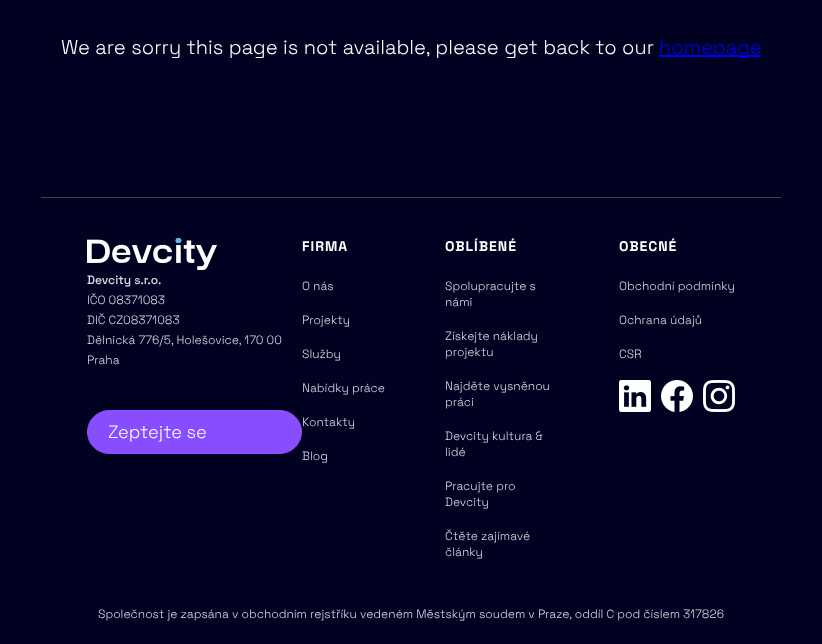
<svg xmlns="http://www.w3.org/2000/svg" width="822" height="644">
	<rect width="100%" height="100%" fill="#010222" />
	<text x="61" y="54" word-spacing="0.25" font-family="Space Grotesk" font-size="20" font-weight="300" fill="#FFFFFF">We are sorry this page is not available, please get back to our</text>
	<rect x="659" y="55" width="102" height="2" fill="#0000EE" />
	<text x="659" y="54" font-family="Space Grotesk" font-size="20" font-weight="300" fill="#0000EE">homepage</text>
	<rect x="41" y="197" width="740" height="1" fill="#424242" />
	<image x="87" y="238" width="130" height="32" href="assets/img1.png" />
	<text x="87" y="284" font-family="Space Grotesk" font-size="12" font-weight="500" fill="#DCDDE4">Devcity s.r.o.</text>
	<g font-family="Space Grotesk" font-size="12" font-weight="300" fill="#DCDDE4">
		<text x="87" y="304">IČO 08371083</text>
		<text x="87" y="324">DIČ CZ08371083</text>
		<text x="87" y="344">Dělnická 776/5, Holešovice, 170 00</text>
		<text x="87" y="364">Praha</text>
	</g>
	<rect x="87.5" y="410.5" width="214" height="43" rx="21.5" fill="#884DFF" stroke="#884DFF" />
	<text x="108" y="438" font-family="Space Grotesk" font-size="18" font-weight="300" fill="#FFFFFF">Zeptejte se</text>
	<text x="302" y="251" font-family="Space Grotesk" font-size="14" font-weight="700" letter-spacing="1" fill="#FFFFFF">FIRMA</text>
	<g font-family="Space Grotesk" font-size="12" font-weight="300" fill="#DCDDE4">
		<text x="302" y="290">O nás</text>
		<text x="302" y="324">Projekty</text>
		<text x="302" y="358">Služby</text>
		<text x="302" y="392">Nabídky práce</text>
		<text x="302" y="426">Kontakty</text>
		<text x="302" y="460">Blog</text>
	</g>
	<text x="445" y="251" font-family="Space Grotesk" font-size="14" font-weight="700" letter-spacing="1" fill="#FFFFFF">OBLÍBENÉ</text>
	<g font-family="Space Grotesk" font-size="12" font-weight="300" fill="#DCDDE4">
		<text x="445" y="290">Spolupracujte s</text>
		<text x="445" y="306">námi</text>
		<text x="445" y="340">Získejte náklady</text>
		<text x="445" y="356">projektu</text>
		<text x="445" y="390">Najděte vysněnou</text>
		<text x="445" y="406">práci</text>
		<text x="445" y="440">Devcity kultura &amp;</text>
		<text x="445" y="456">lidé</text>
		<text x="445" y="490">Pracujte pro</text>
		<text x="445" y="506">Devcity</text>
		<text x="445" y="540">Čtěte zajímavé</text>
		<text x="445" y="556">články</text>
	</g>
	<text x="619" y="251" font-family="Space Grotesk" font-size="14" font-weight="700" letter-spacing="1" fill="#FFFFFF">OBECNÉ</text>
	<g font-family="Space Grotesk" font-size="12" font-weight="300" fill="#DCDDE4">
		<text x="619" y="290">Obchodní podmínky</text>
		<text x="619" y="324">Ochrana údajů</text>
		<text x="619" y="358">CSR</text>
	</g>
	<image x="619" y="380" width="32" height="32" href="assets/img2.png" />
	<image x="661" y="380" width="32" height="32" href="assets/img3.png" />
	<image x="703" y="380" width="32" height="32" href="assets/img4.png" />
	<text x="98" y="618" font-family="Space Grotesk" font-size="12" font-weight="300" fill="#DCDDE4">Společnost je zapsána v obchodním rejstříku vedeném Městským soudem v Praze, oddíl C pod číslem 317826</text>
</svg>
